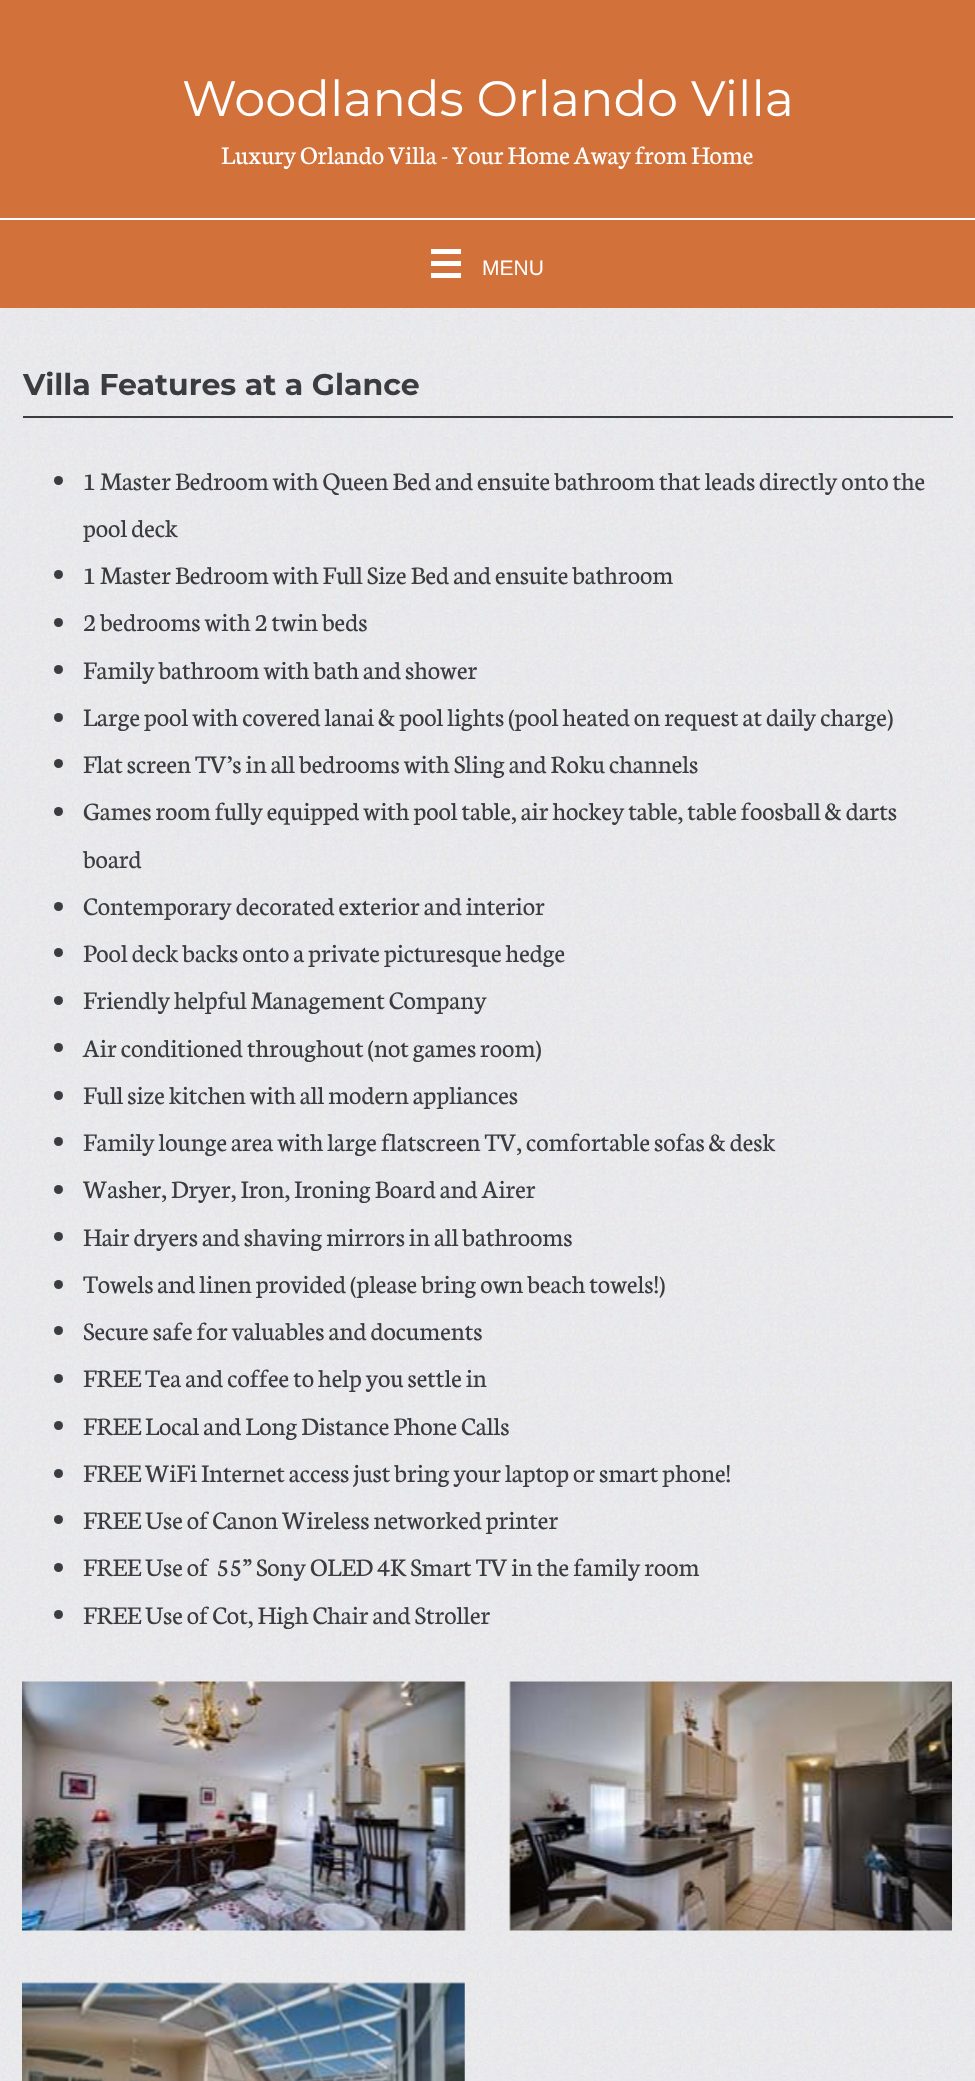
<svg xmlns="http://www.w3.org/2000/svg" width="975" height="2081">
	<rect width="100%" height="100%" fill="#FFFFFF" />
	<image x="0" y="308" width="975" height="1773" href="assets/img1.png" />
	<rect x="0" y="0" width="975" height="308" fill="#D2713A" />
	<text x="182" y="116" font-family="Montserrat" font-size="49.5" fill="#FFFFFF">Woodlands Orlando Villa</text>
	<text x="221" y="164" font-family="Neuton" font-size="27" fill="#FFFFFF">Luxury Orlando Villa - Your Home Away from Home</text>
	<rect x="0" y="218" width="975" height="2" fill="#FFFFFF" />
	<rect x="431" y="249" width="30" height="5" fill="#FFFFFF" />
	<rect x="431" y="261" width="30" height="5" fill="#FFFFFF" />
	<rect x="431" y="273" width="30" height="5" fill="#FFFFFF" />
	<text x="482" y="275" font-family="Liberation Sans" font-size="21" fill="#FFFFFF">MENU</text>
	<rect x="23" y="416" width="930" height="2" fill="#3B3C3F" />
	<text x="23" y="395" font-family="Montserrat" font-size="30" font-weight="700" fill="#3B3C3F">Villa Features at a Glance</text>
	<circle cx="58.5" cy="480.5" r="4.5" fill="#3B3C3F" />
	<g font-family="Neuton" font-size="27" fill="#3B3C3F">
		<text x="83" y="490">1 Master Bedroom with Queen Bed and ensuite bathroom that leads directly onto the</text>
		<text x="83" y="537">pool deck</text>
	</g>
	<circle cx="58.5" cy="574.5" r="4.5" fill="#3B3C3F" />
	<text x="83" y="584" font-family="Neuton" font-size="27" fill="#3B3C3F">1 Master Bedroom with Full Size Bed and ensuite bathroom</text>
	<circle cx="58.5" cy="622.5" r="4.5" fill="#3B3C3F" />
	<text x="83" y="631" font-family="Neuton" font-size="27" fill="#3B3C3F">2 bedrooms with 2 twin beds</text>
	<circle cx="58.5" cy="669.5" r="4.5" fill="#3B3C3F" />
	<text x="83" y="679" font-family="Neuton" font-size="27" fill="#3B3C3F">Family bathroom with bath and shower</text>
	<circle cx="58.5" cy="717.5" r="4.5" fill="#3B3C3F" />
	<text x="83" y="726" font-family="Neuton" font-size="27" fill="#3B3C3F">Large pool with covered lanai &amp; pool lights (pool heated on request at daily charge)</text>
	<circle cx="58.5" cy="763.5" r="4.5" fill="#3B3C3F" />
	<text x="83" y="773" font-family="Neuton" font-size="27" fill="#3B3C3F">Flat screen TV’s in all bedrooms with Sling and Roku channels</text>
	<circle cx="58.5" cy="811.5" r="4.5" fill="#3B3C3F" />
	<g font-family="Neuton" font-size="27" fill="#3B3C3F">
		<text x="83" y="820">Games room fully equipped with pool table, air hockey table, table foosball &amp; darts</text>
		<text x="83" y="868">board</text>
	</g>
	<circle cx="58.5" cy="906.5" r="4.5" fill="#3B3C3F" />
	<text x="83" y="915" font-family="Neuton" font-size="27" fill="#3B3C3F">Contemporary decorated exterior and interior</text>
	<circle cx="58.5" cy="952.5" r="4.5" fill="#3B3C3F" />
	<text x="83" y="962" font-family="Neuton" font-size="27" fill="#3B3C3F">Pool deck backs onto a private picturesque hedge</text>
	<circle cx="58.5" cy="1000.5" r="4.5" fill="#3B3C3F" />
	<text x="83" y="1009" font-family="Neuton" font-size="27" fill="#3B3C3F">Friendly helpful Management Company</text>
	<circle cx="58.5" cy="1047.5" r="4.5" fill="#3B3C3F" />
	<text x="83" y="1057" font-family="Neuton" font-size="27" fill="#3B3C3F">Air conditioned throughout (not games room)</text>
	<circle cx="58.5" cy="1095.5" r="4.5" fill="#3B3C3F" />
	<text x="83" y="1104" font-family="Neuton" font-size="27" fill="#3B3C3F">Full size kitchen with all modern appliances</text>
	<circle cx="58.5" cy="1141.5" r="4.5" fill="#3B3C3F" />
	<text x="83" y="1151" font-family="Neuton" font-size="27" fill="#3B3C3F">Family lounge area with large flatscreen TV, comfortable sofas &amp; desk</text>
	<circle cx="58.5" cy="1189.5" r="4.5" fill="#3B3C3F" />
	<text x="83" y="1198" font-family="Neuton" font-size="27" fill="#3B3C3F">Washer, Dryer, Iron, Ironing Board and Airer</text>
	<circle cx="58.5" cy="1236.5" r="4.5" fill="#3B3C3F" />
	<text x="83" y="1246" font-family="Neuton" font-size="27" fill="#3B3C3F">Hair dryers and shaving mirrors in all bathrooms</text>
	<circle cx="58.5" cy="1284.5" r="4.5" fill="#3B3C3F" />
	<text x="83" y="1293" font-family="Neuton" font-size="27" fill="#3B3C3F">Towels and linen provided (please bring own beach towels!)</text>
	<circle cx="58.5" cy="1330.5" r="4.5" fill="#3B3C3F" />
	<text x="83" y="1340" font-family="Neuton" font-size="27" fill="#3B3C3F">Secure safe for valuables and documents</text>
	<circle cx="58.5" cy="1378.5" r="4.5" fill="#3B3C3F" />
	<text x="83" y="1387" font-family="Neuton" font-size="27" fill="#3B3C3F">FREE Tea and coffee to help you settle in</text>
	<circle cx="58.5" cy="1425.5" r="4.5" fill="#3B3C3F" />
	<text x="83" y="1435" font-family="Neuton" font-size="27" fill="#3B3C3F">FREE Local and Long Distance Phone Calls</text>
	<circle cx="58.5" cy="1473.5" r="4.5" fill="#3B3C3F" />
	<text x="83" y="1482" font-family="Neuton" font-size="27" fill="#3B3C3F">FREE WiFi Internet access just bring your laptop or smart phone!</text>
	<circle cx="58.5" cy="1519.5" r="4.5" fill="#3B3C3F" />
	<text x="83" y="1529" font-family="Neuton" font-size="27" fill="#3B3C3F">FREE Use of Canon Wireless networked printer</text>
	<circle cx="58.5" cy="1567.5" r="4.5" fill="#3B3C3F" />
	<text x="83" y="1576" font-family="Neuton" font-size="27" fill="#3B3C3F" xml:space="preserve">FREE Use of  55” Sony OLED 4K Smart TV in the family room</text>
	<circle cx="58.5" cy="1614.5" r="4.5" fill="#3B3C3F" />
	<text x="83" y="1624" font-family="Neuton" font-size="27" fill="#3B3C3F">FREE Use of Cot, High Chair and Stroller</text>
	<image x="22" y="1681" width="444" height="250" href="assets/img2.png" />
	<image x="509" y="1681" width="443" height="250" href="assets/img3.png" />
	<image x="22" y="1982" width="443" height="99" href="assets/img4.png" />
</svg>
